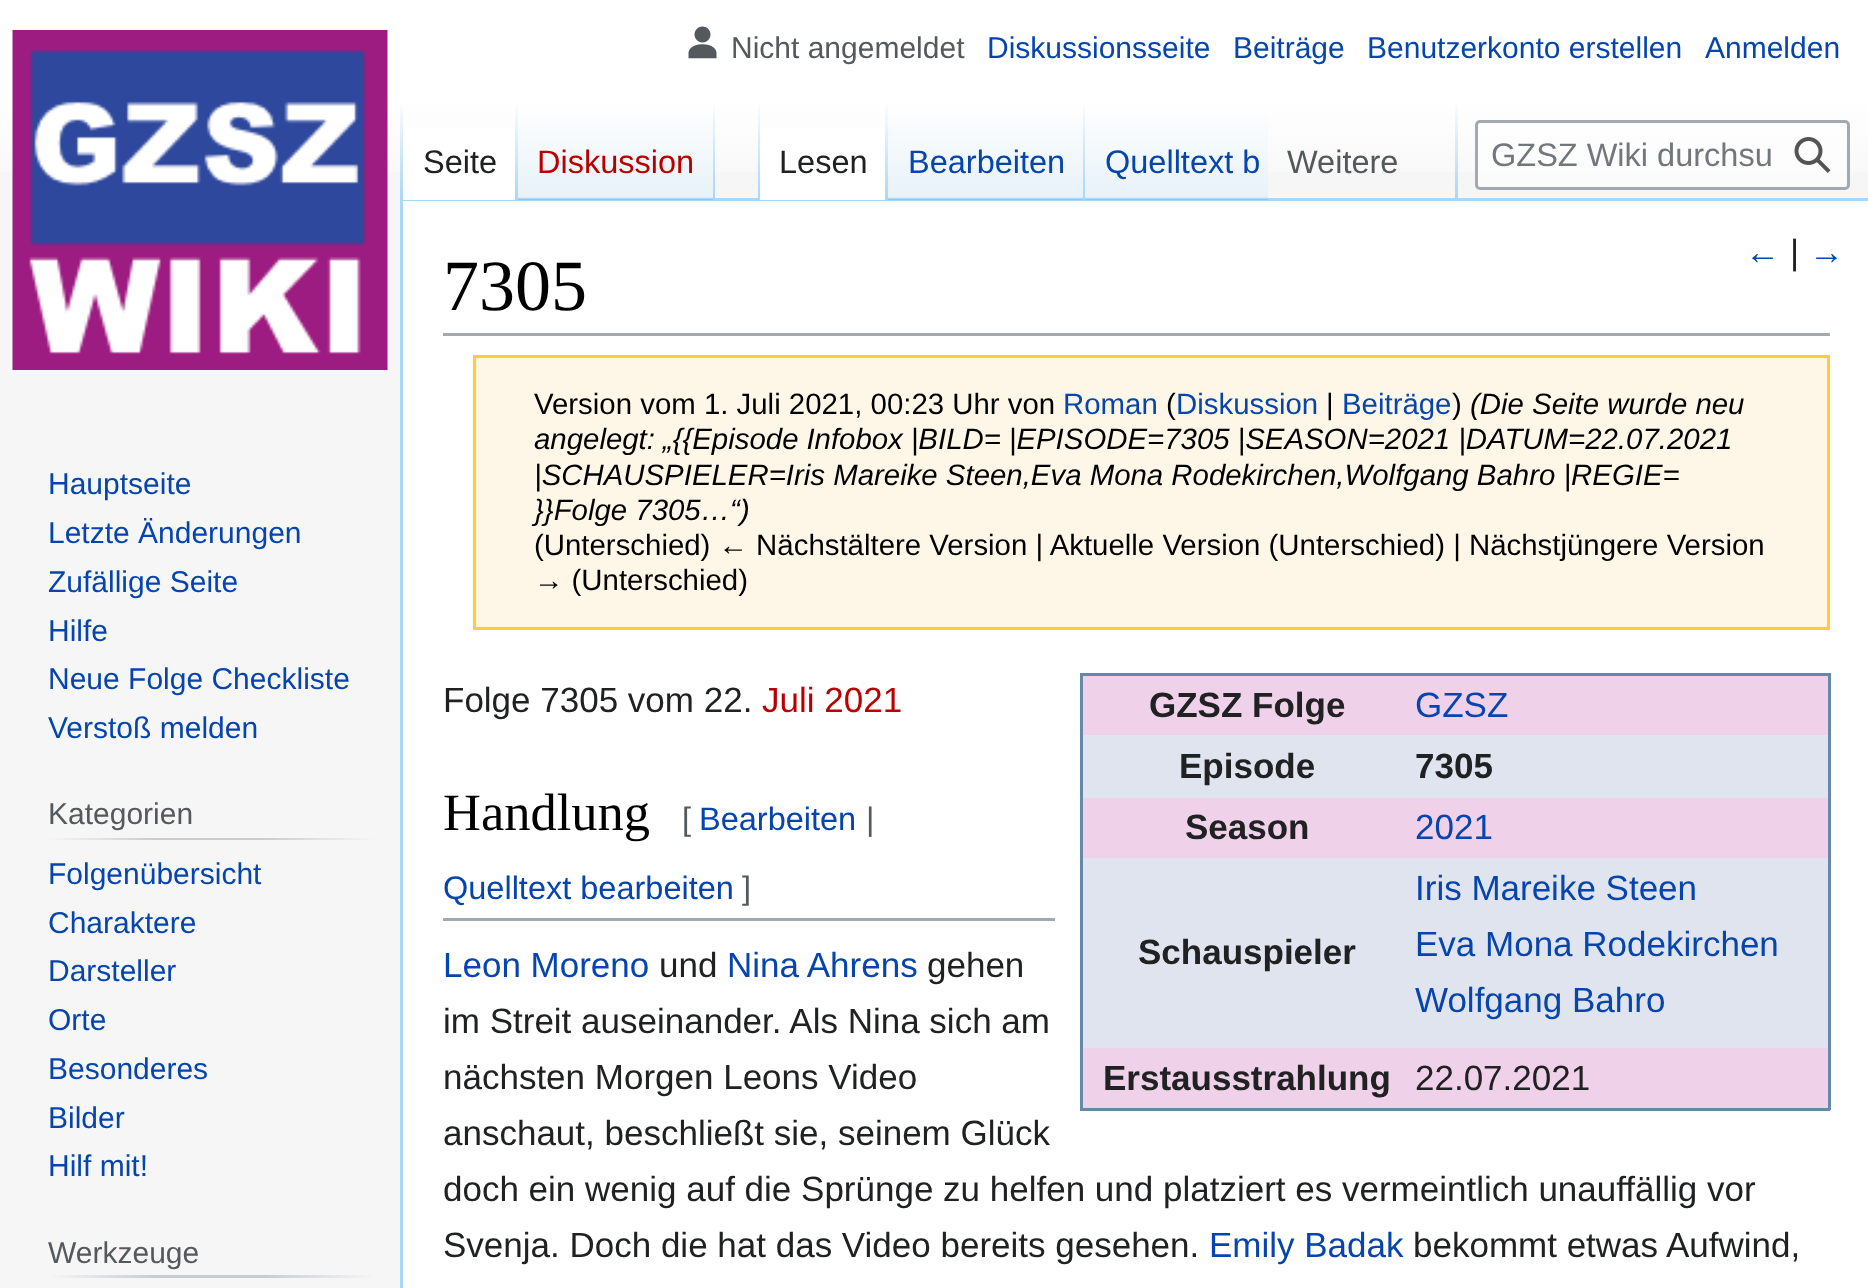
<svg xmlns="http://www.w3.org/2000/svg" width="1868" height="1288">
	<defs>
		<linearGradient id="g1" gradientUnits="userSpaceOnUse" x1="935" y1="0" x2="935" y2="200"><stop offset="0.5" stop-color="#FFFFFF" /><stop offset="1" stop-color="#F6F6F6" /></linearGradient>
		<linearGradient id="g2" gradientUnits="userSpaceOnUse" x1="401" y1="100" x2="401" y2="200"><stop offset="0" stop-color="#A7D7F9" stop-opacity="0" /><stop offset="1" stop-color="#A7D7F9" /></linearGradient>
		<linearGradient id="g3" gradientUnits="userSpaceOnUse" x1="516" y1="100" x2="516" y2="200"><stop offset="0" stop-color="#FFFFFF" /><stop offset="1" stop-color="#A7D7F9" /></linearGradient>
		<linearGradient id="g4" gradientUnits="userSpaceOnUse" x1="616" y1="200" x2="616" y2="100"><stop offset="0" stop-color="#77C1F6" /><stop offset="0.03" stop-color="#E8F2F8" /><stop offset="1" stop-color="#FFFFFF" /></linearGradient>
		<linearGradient id="g5" gradientUnits="userSpaceOnUse" x1="714" y1="100" x2="714" y2="200"><stop offset="0" stop-color="#A7D7F9" stop-opacity="0" /><stop offset="1" stop-color="#A7D7F9" /></linearGradient>
		<linearGradient id="g6" gradientUnits="userSpaceOnUse" x1="759" y1="100" x2="759" y2="200"><stop offset="0" stop-color="#A7D7F9" stop-opacity="0" /><stop offset="1" stop-color="#A7D7F9" /></linearGradient>
		<linearGradient id="g7" gradientUnits="userSpaceOnUse" x1="886" y1="100" x2="886" y2="200"><stop offset="0" stop-color="#FFFFFF" /><stop offset="1" stop-color="#A7D7F9" /></linearGradient>
		<linearGradient id="g8" gradientUnits="userSpaceOnUse" x1="986" y1="200" x2="986" y2="100"><stop offset="0" stop-color="#77C1F6" /><stop offset="0.03" stop-color="#E8F2F8" /><stop offset="1" stop-color="#FFFFFF" /></linearGradient>
		<linearGradient id="g9" gradientUnits="userSpaceOnUse" x1="1084" y1="100" x2="1084" y2="200"><stop offset="0" stop-color="#A7D7F9" stop-opacity="0" /><stop offset="1" stop-color="#A7D7F9" /></linearGradient>
		<linearGradient id="g10" gradientUnits="userSpaceOnUse" x1="1176" y1="200" x2="1176" y2="100"><stop offset="0" stop-color="#77C1F6" /><stop offset="0.03" stop-color="#E8F2F8" /><stop offset="1" stop-color="#FFFFFF" /></linearGradient>
		<linearGradient id="g11" gradientUnits="userSpaceOnUse" x1="1456" y1="100" x2="1456" y2="200"><stop offset="0" stop-color="#A7D7F9" stop-opacity="0" /><stop offset="1" stop-color="#A7D7F9" /></linearGradient>
		<linearGradient id="g12" gradientUnits="userSpaceOnUse" x1="48" y1="839" x2="375" y2="839"><stop offset="0" stop-color="#F6F6F6" /><stop offset="0.33" stop-color="#C8CCD1" /><stop offset="0.66" stop-color="#C8CCD1" /><stop offset="1" stop-color="#F6F6F6" /></linearGradient>
		<linearGradient id="g13" gradientUnits="userSpaceOnUse" x1="48" y1="1276" x2="375" y2="1276"><stop offset="0" stop-color="#F6F6F6" /><stop offset="0.33" stop-color="#C8CCD1" /><stop offset="0.66" stop-color="#C8CCD1" /><stop offset="1" stop-color="#F6F6F6" /></linearGradient>
	</defs>
	<rect width="100%" height="100%" fill="#F6F6F6" />
	<rect x="0" y="0" width="1868" height="172" fill="url(#g1)" />
	<image x="688" y="26" width="29" height="33" href="assets/img1.png" />
	<text x="731" y="58" font-family="Liberation Sans" font-size="30" fill="#54595D">Nicht angemeldet</text>
	<g font-family="Liberation Sans" font-size="30" fill="#0645AD">
		<text x="987" y="58">Diskussionsseite</text>
		<text x="1233" y="58">Beiträge</text>
		<text x="1367" y="58">Benutzerkonto erstellen</text>
		<text x="1705" y="58">Anmelden</text>
	</g>
	<rect x="400" y="198" width="1468" height="3" fill="#A7D7F9" />
	<rect x="400" y="198" width="3" height="1090" fill="#A7D7F9" />
	<rect x="400" y="100" width="3" height="100" fill="url(#g2)" />
	<rect x="403" y="128" width="112" height="72" fill="#FFFFFF" />
	<rect x="515" y="100" width="3" height="100" fill="url(#g3)" />
	<text x="423" y="173" font-family="Liberation Sans" font-size="32.5" fill="#202122">Seite</text>
	<rect x="518" y="115" width="197" height="85" fill="url(#g4)" />
	<rect x="713" y="100" width="2" height="100" fill="url(#g5)" />
	<text x="537" y="173" font-family="Liberation Sans" font-size="32.5" fill="#BA0000">Diskussion</text>
	<rect x="758" y="100" width="2" height="100" fill="url(#g6)" />
	<rect x="760" y="128" width="125" height="72" fill="#FFFFFF" />
	<rect x="885" y="100" width="3" height="100" fill="url(#g7)" />
	<text x="779" y="173" font-family="Liberation Sans" font-size="32.5" fill="#202122">Lesen</text>
	<rect x="888" y="115" width="197" height="85" fill="url(#g8)" />
	<rect x="1083" y="100" width="2" height="100" fill="url(#g9)" />
	<text x="908" y="173" font-family="Liberation Sans" font-size="32.5" fill="#0645AD">Bearbeiten</text>
	<rect x="1085" y="115" width="183" height="85" fill="url(#g10)" />
	<text x="1105" y="173" font-family="Liberation Sans" font-size="32.5" fill="#0645AD">Quelltext b</text>
	<rect x="1455" y="100" width="3" height="100" fill="url(#g11)" />
	<text x="1287" y="173" font-family="Liberation Sans" font-size="32.5" fill="#54595D">Weitere</text>
	<rect x="1476.5" y="121.5" width="372" height="67" rx="3.5" fill="#FFFFFF" fill-opacity="0.5" stroke="#A2A9B1" stroke-width="3" />
	<text x="1491" y="166" font-family="Liberation Sans" font-size="32.5" fill="#72777D">GZSZ Wiki durchsu</text>
	<image x="1794" y="137" width="37" height="36" href="assets/img2.png" />
	<image x="12" y="30" width="376" height="340" href="assets/img3.png" />
	<g font-family="Liberation Sans" font-size="30" fill="#0645AD">
		<text x="48" y="494">Hauptseite</text>
		<text x="48" y="543">Letzte Änderungen</text>
		<text x="48" y="592">Zufällige Seite</text>
		<text x="48" y="641">Hilfe</text>
		<text x="48" y="689">Neue Folge Checkliste</text>
		<text x="48" y="738">Verstoß melden</text>
	</g>
	<rect x="48" y="838" width="327" height="2" fill="url(#g12)" />
	<text x="48" y="824" font-family="Liberation Sans" font-size="30" fill="#54595D">Kategorien</text>
	<g font-family="Liberation Sans" font-size="30" fill="#0645AD">
		<text x="48" y="884">Folgenübersicht</text>
		<text x="48" y="933">Charaktere</text>
		<text x="48" y="981">Darsteller</text>
		<text x="48" y="1030">Orte</text>
		<text x="48" y="1079">Besonderes</text>
		<text x="48" y="1128">Bilder</text>
		<text x="48" y="1176">Hilf mit!</text>
	</g>
	<rect x="48" y="1275" width="327" height="3" fill="url(#g13)" />
	<text x="48" y="1263" font-family="Liberation Sans" font-size="30" fill="#54595D">Werkzeuge</text>
	<rect x="403" y="201" width="1465" height="1087" fill="#FFFFFF" />
	<text x="1745" y="264" font-family="Liberation Sans" font-size="35" fill="#0645AD">←</text>
	<text x="1790" y="264" font-family="Liberation Sans" font-size="35" fill="#202122">|</text>
	<text x="1809" y="264" font-family="Liberation Sans" font-size="35" fill="#0645AD">→</text>
	<text x="443" y="712" font-family="Liberation Sans" font-size="35" fill="#202122">Folge 7305 vom 22.</text>
	<text x="762" y="712" font-family="Liberation Sans" font-size="35" fill="#BA0000">Juli 2021</text>
	<rect x="1080" y="673" width="750" height="3" fill="#6688AA" />
	<rect x="1828" y="673" width="3" height="437" fill="#6688AA" />
	<rect x="1080" y="1108" width="750" height="3" fill="#6688AA" />
	<rect x="1080" y="673" width="3" height="437" fill="#6688AA" />
	<rect x="1083" y="676" width="745" height="59" fill="#EFD1E9" />
	<text x="1149" y="717" font-family="Liberation Sans" font-size="35" font-weight="700" fill="#202122">GZSZ Folge</text>
	<text x="1415" y="717" font-family="Liberation Sans" font-size="35" fill="#0645AD">GZSZ</text>
	<rect x="1083" y="735" width="745" height="63" fill="#E0E4EF" />
	<g font-family="Liberation Sans" font-size="35" font-weight="700" fill="#202122">
		<text x="1179" y="778">Episode</text>
		<text x="1415" y="778">7305</text>
	</g>
	<rect x="1083" y="798" width="745" height="60" fill="#EFD1E9" />
	<text x="1185" y="839" font-family="Liberation Sans" font-size="35" font-weight="700" fill="#202122">Season</text>
	<text x="1415" y="839" font-family="Liberation Sans" font-size="35" fill="#0645AD">2021</text>
	<rect x="1083" y="858" width="745" height="190" fill="#E0E4EF" />
	<text x="1138" y="964" font-family="Liberation Sans" font-size="35" font-weight="700" fill="#202122">Schauspieler</text>
	<g font-family="Liberation Sans" font-size="35" fill="#0645AD">
		<text x="1415" y="900">Iris Mareike Steen</text>
		<text x="1415" y="956">Eva Mona Rodekirchen</text>
		<text x="1415" y="1012">Wolfgang Bahro</text>
	</g>
	<rect x="1083" y="1048" width="745" height="60" fill="#EFD1E9" />
	<text x="1103" y="1090" font-family="Liberation Sans" font-size="35" font-weight="700" fill="#202122">Erstausstrahlung</text>
	<text x="1415" y="1090" font-family="Liberation Sans" font-size="35" fill="#202122">22.07.2021</text>
	<rect x="443" y="918" width="612" height="3" fill="#A2A9B1" />
	<text x="443" y="830" font-family="Liberation Serif" font-size="52.5" fill="#000000">Handlung</text>
	<text x="682" y="830" font-family="Liberation Sans" font-size="32.5" fill="#54595D">[</text>
	<text x="699" y="830" font-family="Liberation Sans" font-size="32.5" fill="#0645AD">Bearbeiten</text>
	<text x="866" y="830" font-family="Liberation Sans" font-size="32.5" fill="#54595D">|</text>
	<text x="443" y="899" font-family="Liberation Sans" font-size="32.5" fill="#0645AD">Quelltext bearbeiten</text>
	<text x="742" y="899" font-family="Liberation Sans" font-size="32.5" fill="#54595D">]</text>
	<text x="443" y="977" font-family="Liberation Sans" font-size="35" fill="#0645AD">Leon Moreno</text>
	<text x="659" y="977" font-family="Liberation Sans" font-size="35" fill="#202122">und</text>
	<text x="727" y="977" font-family="Liberation Sans" font-size="35" fill="#0645AD">Nina Ahrens</text>
	<g font-family="Liberation Sans" font-size="35" fill="#202122">
		<text x="927" y="977">gehen</text>
		<text x="443" y="1033">im Streit auseinander. Als Nina sich am</text>
		<text x="443" y="1089">nächsten Morgen Leons Video</text>
		<text x="443" y="1145">anschaut, beschließt sie, seinem Glück</text>
		<text x="443" y="1201">doch ein wenig auf die Sprünge zu helfen und platziert es vermeintlich unauffällig vor</text>
		<text x="443" y="1257">Svenja. Doch die hat das Video bereits gesehen.</text>
	</g>
	<text x="1209" y="1257" font-family="Liberation Sans" font-size="35" fill="#0645AD">Emily Badak</text>
	<text x="1413" y="1257" font-family="Liberation Sans" font-size="35" fill="#202122">bekommt etwas Aufwind,</text>
	<rect x="474.5" y="356.5" width="1354" height="272" fill="#FEF6E7" stroke="#FFCC33" stroke-width="3" />
	<text x="534" y="414" font-family="Liberation Sans" font-size="29.4" fill="#000000">Version vom 1. Juli 2021, 00:23 Uhr von</text>
	<text x="1063" y="414" font-family="Liberation Sans" font-size="29.4" fill="#0645AD">Roman</text>
	<text x="1166" y="414" font-family="Liberation Sans" font-size="29.4" fill="#000000">(</text>
	<text x="1176" y="414" font-family="Liberation Sans" font-size="29.4" fill="#0645AD">Diskussion</text>
	<text x="1326" y="414" font-family="Liberation Sans" font-size="29.4" fill="#000000">|</text>
	<text x="1342" y="414" font-family="Liberation Sans" font-size="29.4" fill="#0645AD">Beiträge</text>
	<text x="1452" y="414" font-family="Liberation Sans" font-size="29.4" fill="#000000">)</text>
	<g font-family="Liberation Sans" font-size="29.4" font-style="italic" fill="#000000">
		<text x="1470" y="414">(Die Seite wurde neu</text>
		<text x="534" y="449" word-spacing="-0.25">angelegt: „{{Episode Infobox |BILD= |EPISODE=7305 |SEASON=2021 |DATUM=22.07.2021</text>
		<text x="534" y="485">|SCHAUSPIELER=Iris Mareike Steen,Eva Mona Rodekirchen,Wolfgang Bahro |REGIE=</text>
		<text x="534" y="520">}}Folge 7305…“)</text>
	</g>
	<g font-family="Liberation Sans" font-size="29.4" fill="#000000">
		<text x="534" y="555">(Unterschied) ← Nächstältere Version | Aktuelle Version (Unterschied) | Nächstjüngere Version</text>
		<text x="534" y="590">→ (Unterschied)</text>
	</g>
	<rect x="443" y="333" width="1387" height="3" fill="#A2A9B1" />
	<text x="443" y="310" font-family="Liberation Serif" font-size="72" fill="#000000">7305</text>
</svg>
